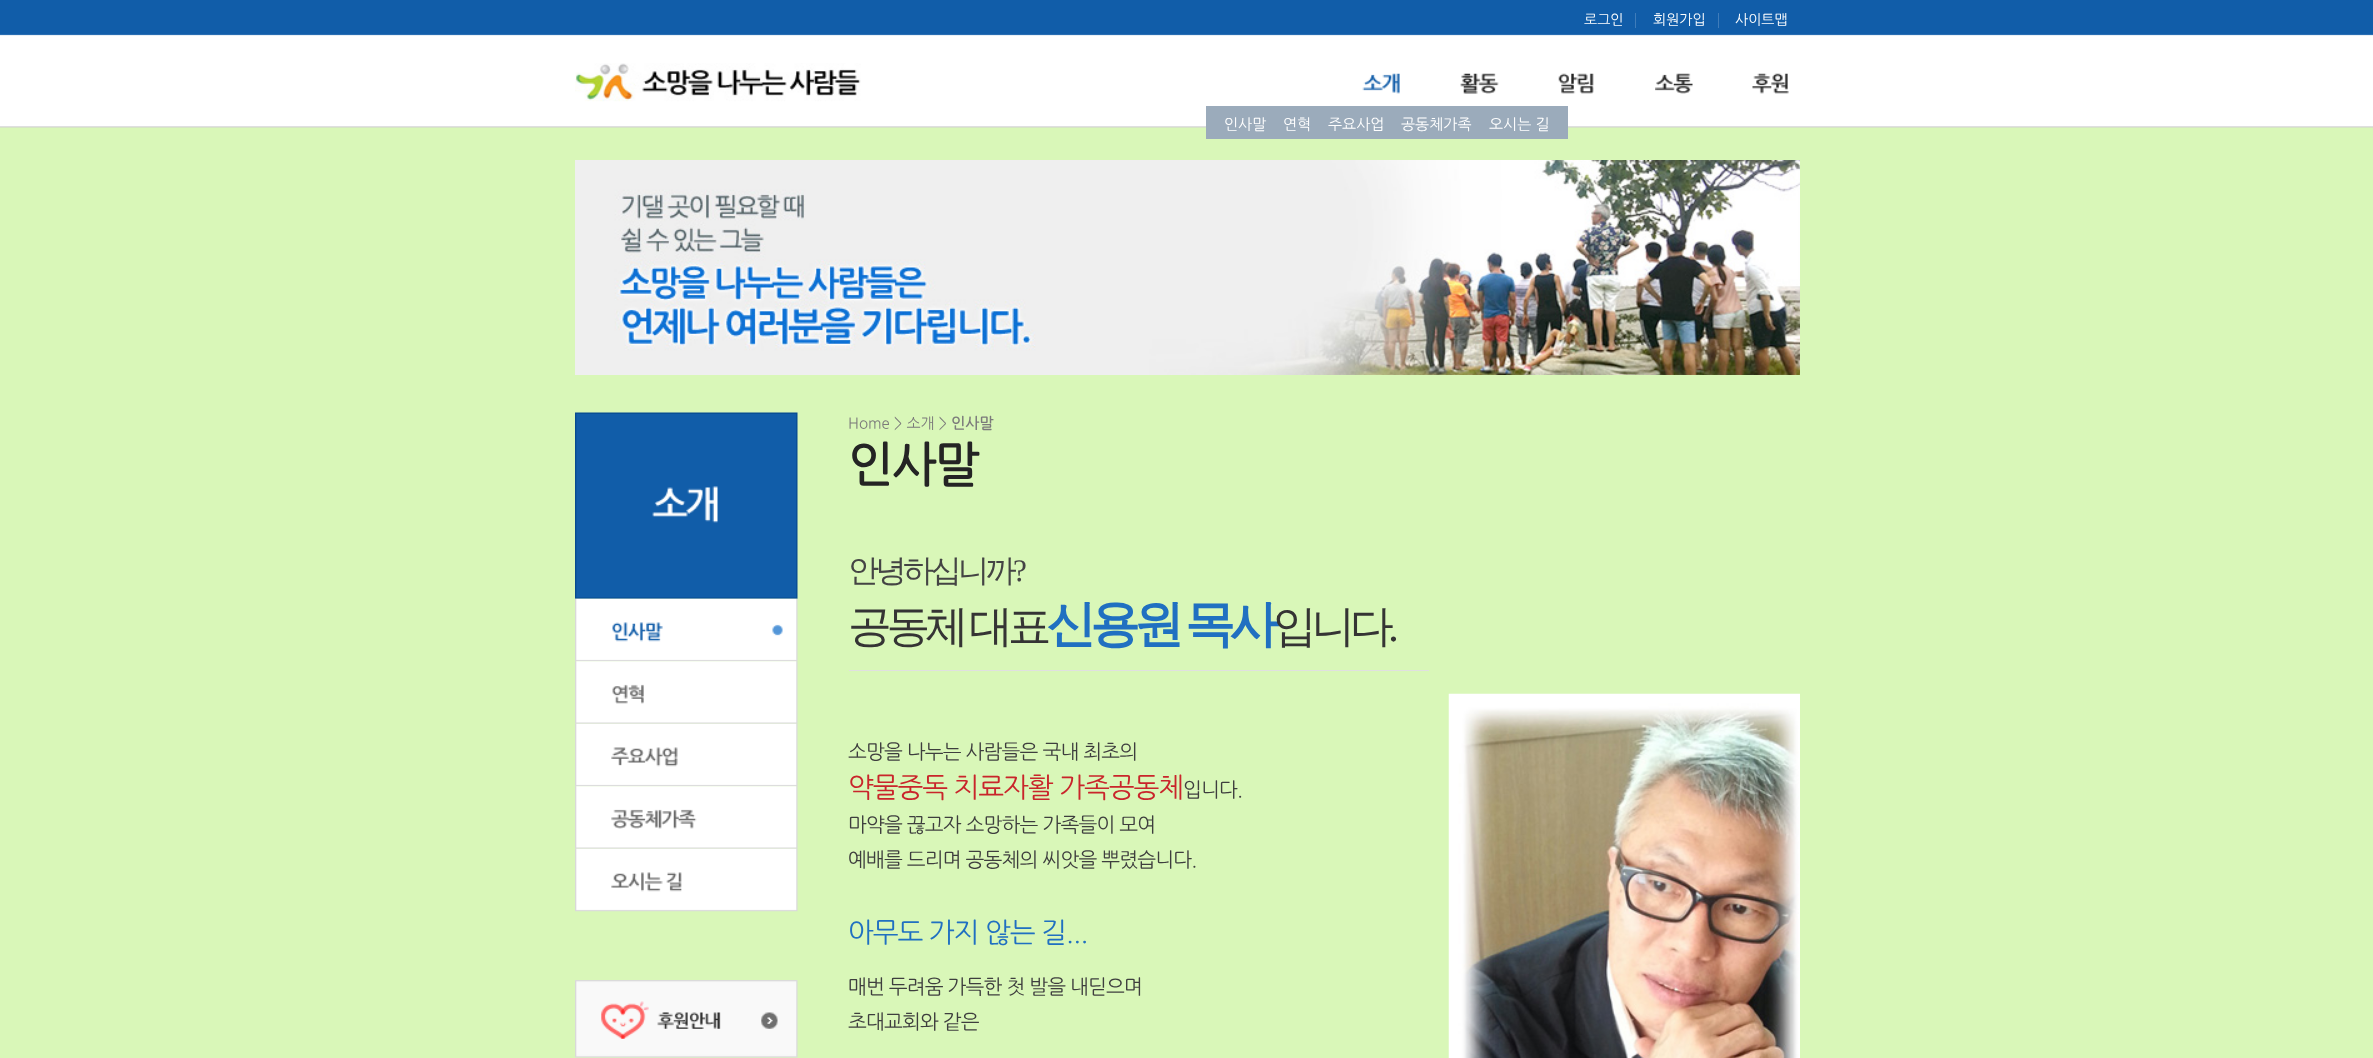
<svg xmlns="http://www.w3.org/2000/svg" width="2373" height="1058">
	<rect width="100%" height="100%" fill="#D9F7B8" />
	<image x="0" y="0" width="2373" height="128" href="assets/img1.png" />
	<rect x="1635" y="13" width="1" height="15" fill="#3F7CBA" />
	<text x="1584" y="24" font-family="NanumGothic" font-size="14" fill="#FFFFFF">로그인</text>
	<rect x="1718" y="13" width="1" height="15" fill="#3F7CBA" />
	<g font-family="NanumGothic" font-size="14" fill="#FFFFFF">
		<text x="1653" y="24">회원가입</text>
		<text x="1735" y="24">사이트맵</text>
	</g>
	<image x="575" y="63" width="286" height="39" href="assets/img2.png" />
	<image x="1362" y="73" width="38" height="21" href="assets/img3.png" />
	<image x="1460" y="73" width="39" height="21" href="assets/img4.png" />
	<image x="1558" y="73" width="36" height="21" href="assets/img5.png" />
	<image x="1655" y="73" width="38" height="21" href="assets/img6.png" />
	<image x="1752" y="73" width="37" height="21" href="assets/img7.png" />
	<rect x="1206" y="106" width="362" height="33" fill="#9BABBB" />
	<g font-family="NanumGothic" font-size="15" fill="#FFFFFF">
		<text x="1224" y="129">인사말</text>
		<text x="1283" y="129">연혁</text>
		<text x="1328" y="129">주요사업</text>
		<text x="1401" y="129">공동체가족</text>
		<text x="1489" y="129">오시는 길</text>
	</g>
	<image x="575" y="160" width="1225" height="215" href="assets/img8.png" />
	<image x="575" y="412" width="223" height="187" href="assets/img9.png" />
	<image x="575" y="598" width="223" height="64" href="assets/img10.png" />
	<image x="575" y="661" width="223" height="63" href="assets/img11.png" />
	<image x="575" y="723" width="223" height="64" href="assets/img12.png" />
	<image x="575" y="786" width="223" height="63" href="assets/img13.png" />
	<image x="575" y="848" width="223" height="64" href="assets/img14.png" />
	<image x="575" y="980" width="223" height="78" href="assets/img15.png" />
	<text x="848" y="428" font-family="NanumGothic" font-size="15" fill="#7C7B7B">Home &gt; 소개 &gt;</text>
	<text x="951" y="428" font-family="NanumGothic" font-size="15" font-weight="700" fill="#7C7B7B">인사말</text>
	<text x="848" y="480" font-family="NanumGothic" font-size="47.5" font-weight="700" letter-spacing="-1.5" fill="#242424">인사말</text>
	<image x="1448" y="693" width="352" height="365" href="assets/img16.png" />
	<rect x="849" y="670" width="580" height="1" fill="#E0E0E0" />
	<text x="848" y="581" font-family="WenQuanYi Zen Hei" font-size="31.25" font-weight="500" letter-spacing="-3.75" fill="#444444">안녕하십니까</text>
	<text x="1013" y="581" font-family="Liberation Serif" font-size="31.25" letter-spacing="-3.75" fill="#444444">?</text>
	<text x="848" y="641" word-spacing="-2" font-family="WenQuanYi Zen Hei" font-size="43.75" font-weight="500" letter-spacing="-5.25" fill="#353434">공동체 대표</text>
	<text x="1046" y="641" word-spacing="-2" font-family="WenQuanYi Zen Hei" font-size="50" font-weight="700" letter-spacing="-6" fill="#2070C1">신용원 목사</text>
	<text x="1273" y="641" font-family="WenQuanYi Zen Hei" font-size="43.75" font-weight="500" letter-spacing="-5.25" fill="#353434">입니다</text>
	<text x="1388" y="641" font-family="Liberation Serif" font-size="43.75" letter-spacing="-5.25" fill="#353434">.</text>
	<text x="848" y="758" font-family="NanumGothic" font-size="20" letter-spacing="-0.8" fill="#3E3E3E">소망을 나누는 사람들은 국내 최초의</text>
	<text x="848" y="796" font-family="NanumGothic" font-size="27.5" letter-spacing="-1.1" fill="#C9252B">약물중독 치료자활 가족공동체</text>
	<g font-family="NanumGothic" font-size="20" letter-spacing="-0.8" fill="#3E3E3E">
		<text x="1183" y="796">입니다.</text>
		<text x="848" y="831">마약을 끊고자 소망하는 가족들이 모여</text>
		<text x="848" y="866">예배를 드리며 공동체의 씨앗을 뿌렸습니다.</text>
	</g>
	<text x="848" y="941" font-family="NanumGothic" font-size="27.5" letter-spacing="-1.1" fill="#2070C1">아무도 가지 않는 길...</text>
	<g font-family="NanumGothic" font-size="20" letter-spacing="-0.8" fill="#3E3E3E">
		<text x="848" y="993">매번 두려움 가득한 첫 발을 내딛으며</text>
		<text x="848" y="1028">초대교회와 같은</text>
	</g>
</svg>
